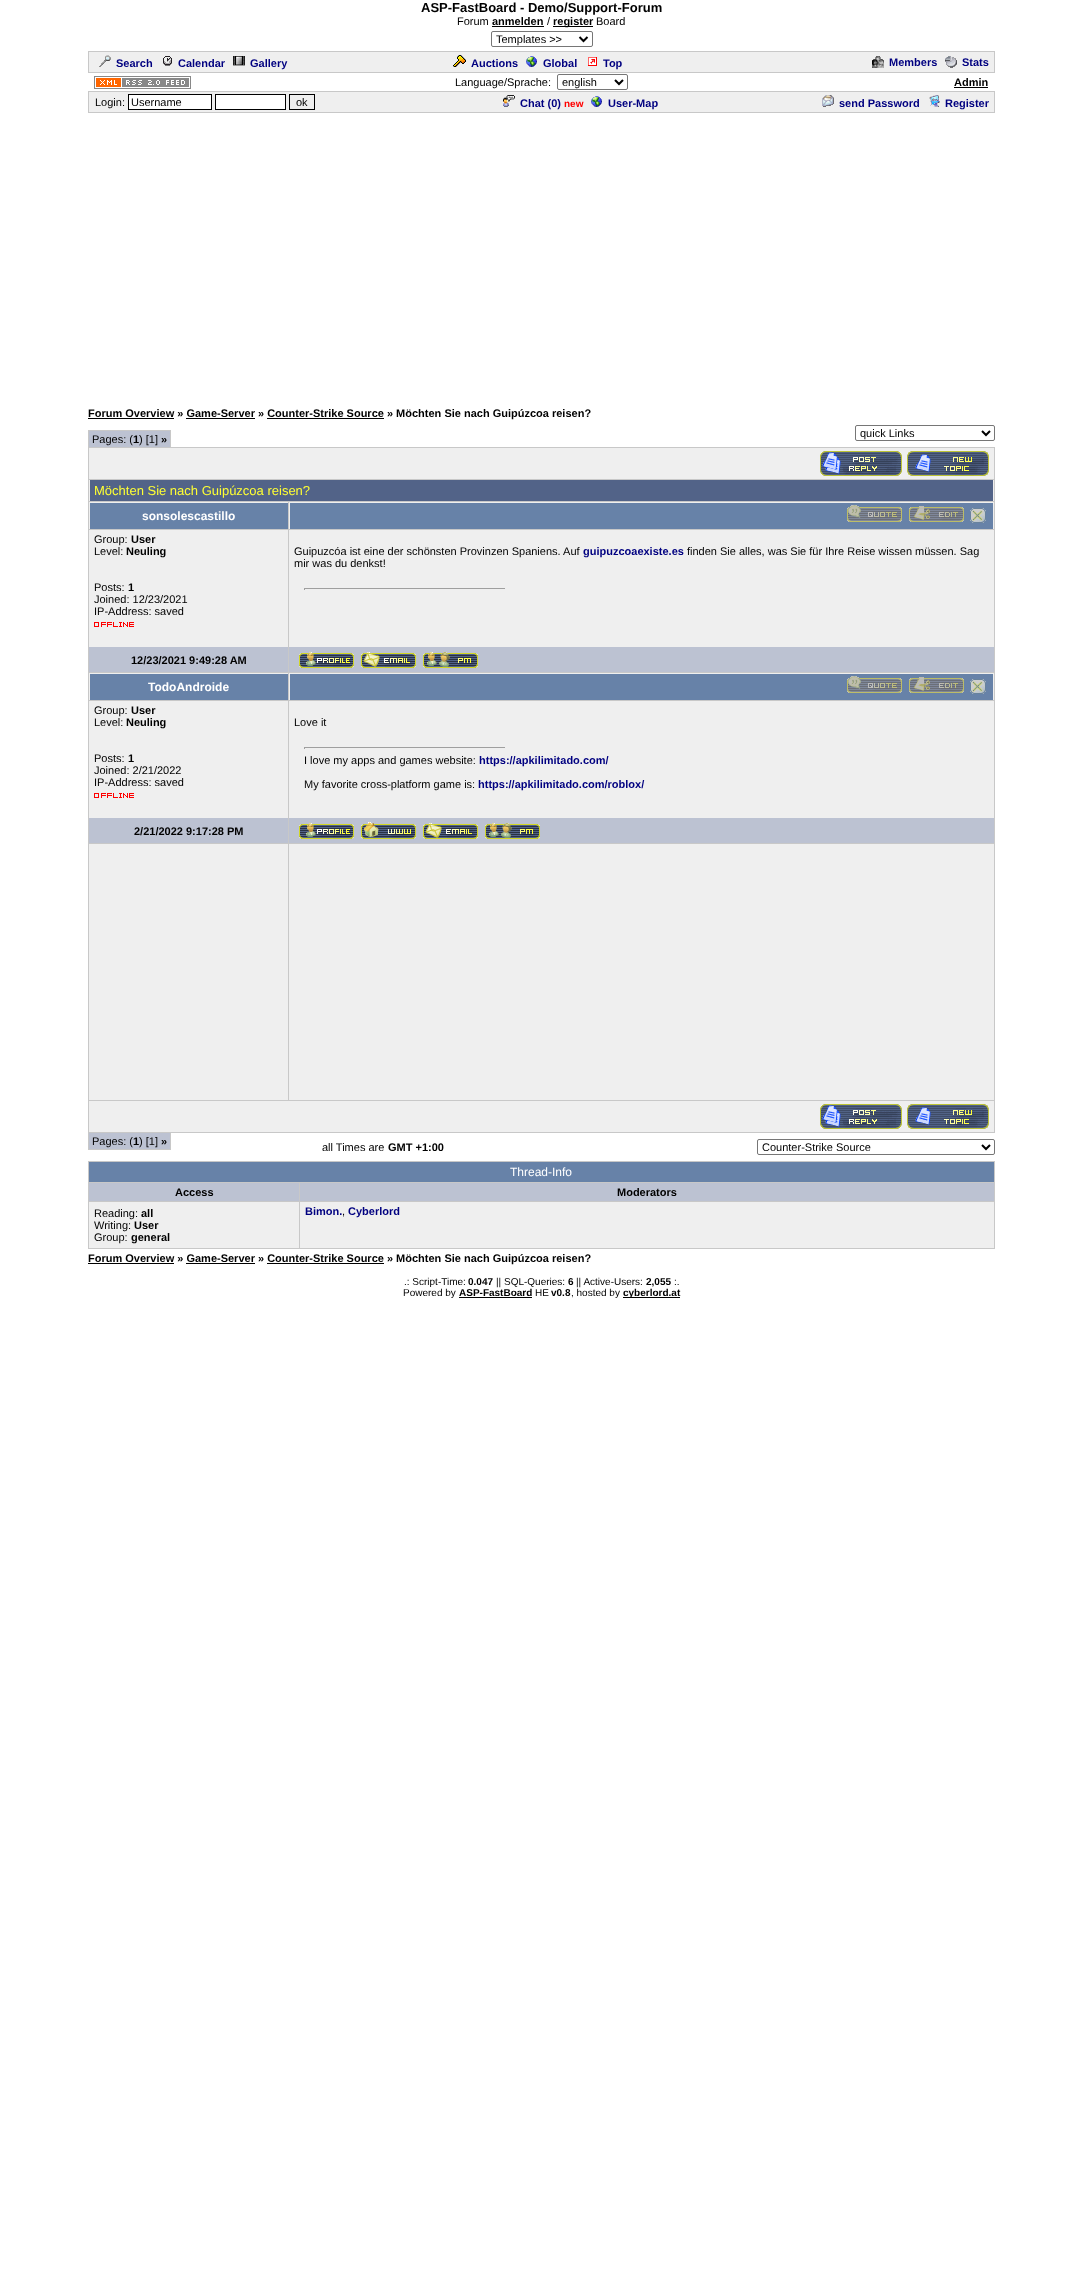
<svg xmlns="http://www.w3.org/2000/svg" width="1083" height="2290">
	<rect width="100%" height="100%" fill="#FFFFFF" />
	<text x="421" y="12" font-family="Liberation Sans" font-size="13" font-weight="700" fill="#000000">ASP-FastBoard - Demo/Support-Forum</text>
	<text x="457" y="25" font-family="Liberation Sans" font-size="11" fill="#000000">Forum</text>
	<text x="492" y="25" font-family="Liberation Sans" font-size="11" font-weight="700" fill="#000000">anmelden</text>
	<rect x="492" y="26" width="52" height="1" fill="#000000" />
	<text x="547" y="25" font-family="Liberation Sans" font-size="11" fill="#000000">/</text>
	<rect x="553" y="26" width="40" height="1" fill="#000000" />
	<text x="553" y="25" font-family="Liberation Sans" font-size="11" font-weight="700" fill="#000000">register</text>
	<text x="596" y="25" font-family="Liberation Sans" font-size="11" fill="#000000">Board</text>
	<rect x="491.5" y="31.5" width="101" height="15" rx="1.5" fill="none" stroke="#767676" />
	<path d="M579.5 37L583.5 41L587.5 37" fill="none" stroke="#000000" stroke-width="2" />
	<text x="496" y="43" font-family="Liberation Sans" font-size="11" fill="#000000">Templates &gt;&gt;</text>
	<rect x="89" y="52" width="905" height="20" fill="#EFEFEF" />
	<rect x="88" y="51" width="907" height="1" fill="#C8C8C8" />
	<rect x="994" y="51" width="1" height="22" fill="#C8C8C8" />
	<rect x="88" y="72" width="907" height="1" fill="#C8C8C8" />
	<rect x="88" y="51" width="1" height="22" fill="#C8C8C8" />
	<image x="99" y="55" width="12" height="12" href="assets/img1.png" />
	<text x="116" y="67" font-family="Liberation Sans" font-size="11" font-weight="700" fill="#000080">Search</text>
	<image x="163" y="56" width="9" height="10" href="assets/img2.png" />
	<text x="178" y="67" font-family="Liberation Sans" font-size="11" font-weight="700" fill="#000080">Calendar</text>
	<image x="233" y="56" width="12" height="10" href="assets/img3.png" />
	<text x="250" y="67" font-family="Liberation Sans" font-size="11" font-weight="700" fill="#000080">Gallery</text>
	<image x="453" y="55" width="13" height="12" href="assets/img4.png" />
	<text x="471" y="67" font-family="Liberation Sans" font-size="11" font-weight="700" fill="#000080">Auctions</text>
	<image x="526" y="56" width="11" height="11" href="assets/img5.png" />
	<text x="543" y="67" font-family="Liberation Sans" font-size="11" font-weight="700" fill="#000080">Global</text>
	<image x="588" y="57" width="9" height="9" href="assets/img6.png" />
	<text x="603" y="67" font-family="Liberation Sans" font-size="11" font-weight="700" fill="#000080">Top</text>
	<image x="872" y="56" width="12" height="12" href="assets/img7.png" />
	<text x="889" y="66" font-family="Liberation Sans" font-size="11" font-weight="700" fill="#000080">Members</text>
	<image x="945" y="56" width="12" height="12" href="assets/img8.png" />
	<text x="962" y="66" font-family="Liberation Sans" font-size="11" font-weight="700" fill="#000080">Stats</text>
	<image x="94" y="76" width="97" height="13" href="assets/img9.png" />
	<text x="455" y="86" font-family="Liberation Sans" font-size="11" fill="#000000">Language/Sprache:</text>
	<rect x="557.5" y="74.5" width="70" height="15" rx="1.5" fill="none" stroke="#767676" />
	<path d="M615 80L619 84L623 80" fill="none" stroke="#000000" stroke-width="2" />
	<text x="562" y="86" font-family="Liberation Sans" font-size="11" fill="#000000">english</text>
	<text x="954" y="86" font-family="Liberation Sans" font-size="11" font-weight="700" fill="#000000">Admin</text>
	<rect x="954" y="87" width="34" height="1" fill="#000000" />
	<rect x="89" y="92" width="905" height="20" fill="#EFEFEF" />
	<rect x="88" y="91" width="907" height="1" fill="#C8C8C8" />
	<rect x="994" y="91" width="1" height="22" fill="#C8C8C8" />
	<rect x="88" y="112" width="907" height="1" fill="#C8C8C8" />
	<rect x="88" y="91" width="1" height="22" fill="#C8C8C8" />
	<text x="95" y="106" font-family="Liberation Sans" font-size="11" fill="#000000">Login:</text>
	<rect x="128.5" y="94.5" width="83" height="15" fill="#FFFFFF" stroke="#000000" />
	<text x="131" y="106" font-family="Liberation Sans" font-size="11" fill="#000000">Username</text>
	<rect x="215.5" y="94.5" width="70" height="15" fill="#FFFFFF" stroke="#000000" />
	<rect x="289.5" y="94.5" width="25" height="15" fill="none" stroke="#000000" />
	<text x="296" y="106" font-family="Liberation Sans" font-size="11" fill="#000000">ok</text>
	<image x="503" y="95" width="12" height="12" href="assets/img10.png" />
	<text x="520" y="107" font-family="Liberation Sans" font-size="11" font-weight="700" fill="#000080">Chat (0)</text>
	<text x="564" y="107" font-family="Liberation Sans" font-size="10" font-weight="700" fill="#FF0000">new</text>
	<image x="591" y="96" width="11" height="11" href="assets/img5.png" />
	<text x="608" y="107" font-family="Liberation Sans" font-size="11" font-weight="700" fill="#000080">User-Map</text>
	<image x="822" y="95" width="12" height="12" href="assets/img11.png" />
	<text x="839" y="107" font-family="Liberation Sans" font-size="11" font-weight="700" fill="#000080">send Password</text>
	<image x="929" y="95" width="11" height="12" href="assets/img12.png" />
	<text x="945" y="107" font-family="Liberation Sans" font-size="11" font-weight="700" fill="#000080">Register</text>
	<rect x="88" y="418" width="86" height="1" fill="#000000" />
	<text x="88" y="417" font-family="Liberation Sans" font-size="11" font-weight="700" fill="#000000">Forum Overview » Game-Server » Counter-Strike Source » Möchten Sie nach Guipúzcoa reisen?</text>
	<rect x="186" y="418" width="69" height="1" fill="#000000" />
	<rect x="267" y="418" width="117" height="1" fill="#000000" />
	<rect x="89" y="431" width="81" height="16" fill="#BCC2D2" />
	<rect x="88" y="430" width="83" height="1" fill="#C8C8C8" />
	<rect x="170" y="430" width="1" height="17" fill="#C8C8C8" />
	<rect x="88" y="430" width="1" height="17" fill="#C8C8C8" />
	<text x="92" y="443" font-family="Liberation Sans" font-size="11" fill="#000000">Pages: (</text>
	<text x="133" y="443" font-family="Liberation Sans" font-size="11" font-weight="700" fill="#000000">1</text>
	<text x="139" y="443" font-family="Liberation Sans" font-size="11" fill="#000000">) [1]</text>
	<text x="161" y="443" font-family="Liberation Sans" font-size="11" font-weight="700" fill="#000000">»</text>
	<rect x="855.5" y="425.5" width="139" height="15" rx="1.5" fill="none" stroke="#767676" />
	<path d="M982 431L986 435L990 431" fill="none" stroke="#000000" stroke-width="2" />
	<text x="860" y="437" font-family="Liberation Sans" font-size="11" fill="#000000">quick Links</text>
	<rect x="89" y="448" width="905" height="31" fill="#EFEFEF" />
	<rect x="88" y="447" width="907" height="1" fill="#C8C8C8" />
	<rect x="994" y="447" width="1" height="55" fill="#C8C8C8" />
	<rect x="88" y="479" width="907" height="1" fill="#C8C8C8" />
	<rect x="88" y="447" width="1" height="55" fill="#C8C8C8" />
	<image x="820" y="451" width="82" height="25" href="assets/img13.png" />
	<image x="907" y="451" width="82" height="25" href="assets/img14.png" />
	<rect x="89" y="480" width="905" height="21" fill="#EFEFEF" />
	<rect x="90" y="480" width="903" height="21" fill="#526388" />
	<text x="94" y="495" font-family="Liberation Sans" font-size="13" fill="#FFFF33">Möchten Sie nach Guipúzcoa reisen?</text>
	<rect x="89" y="502" width="905" height="598" fill="#EFEFEF" />
	<rect x="90" y="503" width="198" height="26" fill="#6782A8" />
	<rect x="288" y="501" width="707" height="1" fill="#C8C8C8" />
	<rect x="288" y="529" width="707" height="1" fill="#C8C8C8" />
	<rect x="89" y="647" width="905" height="25" fill="#BCC2D2" />
	<rect x="288" y="672" width="707" height="1" fill="#C8C8C8" />
	<rect x="288" y="700" width="707" height="1" fill="#C8C8C8" />
	<rect x="89" y="818" width="905" height="25" fill="#BCC2D2" />
	<rect x="288" y="843" width="707" height="1" fill="#C8C8C8" />
	<rect x="288" y="843" width="1" height="258" fill="#C8C8C8" />
	<rect x="88" y="843" width="201" height="1" fill="#C8C8C8" />
	<rect x="288" y="818" width="1" height="26" fill="#C8C8C8" />
	<rect x="288" y="700" width="1" height="119" fill="#C8C8C8" />
	<rect x="88" y="700" width="201" height="1" fill="#C8C8C8" />
	<rect x="288" y="672" width="1" height="29" fill="#C8C8C8" />
	<rect x="88" y="672" width="201" height="1" fill="#C8C8C8" />
	<rect x="288" y="647" width="1" height="26" fill="#C8C8C8" />
	<rect x="288" y="529" width="1" height="119" fill="#C8C8C8" />
	<rect x="88" y="529" width="201" height="1" fill="#C8C8C8" />
	<rect x="288" y="501" width="1" height="29" fill="#C8C8C8" />
	<rect x="88" y="501" width="201" height="1" fill="#C8C8C8" />
	<rect x="88" y="818" width="1" height="283" fill="#C8C8C8" />
	<rect x="88" y="700" width="1" height="119" fill="#C8C8C8" />
	<rect x="88" y="647" width="1" height="54" fill="#C8C8C8" />
	<rect x="88" y="529" width="1" height="119" fill="#C8C8C8" />
	<rect x="88" y="501" width="1" height="29" fill="#C8C8C8" />
	<text x="142" y="520" font-family="Liberation Sans" font-size="12" font-weight="700" fill="#FFFFFF">sonsolescastillo</text>
	<rect x="290" y="503" width="703" height="26" fill="#6782A8" />
	<rect x="994" y="818" width="1" height="283" fill="#C8C8C8" />
	<rect x="994" y="700" width="1" height="119" fill="#C8C8C8" />
	<rect x="994" y="647" width="1" height="54" fill="#C8C8C8" />
	<rect x="994" y="529" width="1" height="119" fill="#C8C8C8" />
	<rect x="994" y="501" width="1" height="29" fill="#C8C8C8" />
	<image x="847" y="505" width="55" height="17" href="assets/img15.png" />
	<image x="909" y="506" width="55" height="16" href="assets/img16.png" />
	<image x="970" y="508" width="16" height="15" href="assets/img17.png" />
	<text x="94" y="543" font-family="Liberation Sans" font-size="11" fill="#000000">Group:</text>
	<text x="131" y="543" font-family="Liberation Sans" font-size="11" font-weight="700" fill="#000000">User</text>
	<text x="94" y="555" font-family="Liberation Sans" font-size="11" fill="#000000">Level:</text>
	<text x="126" y="555" font-family="Liberation Sans" font-size="11" font-weight="700" fill="#000000">Neuling</text>
	<text x="94" y="591" font-family="Liberation Sans" font-size="11" fill="#000000">Posts:</text>
	<text x="128" y="591" font-family="Liberation Sans" font-size="11" font-weight="700" fill="#000000">1</text>
	<g font-family="Liberation Sans" font-size="11" fill="#000000">
		<text x="94" y="603">Joined: 12/23/2021</text>
		<text x="94" y="615">IP-Address: saved</text>
	</g>
	<image x="94" y="622" width="40" height="5" href="assets/img18.png" />
	<text x="294" y="555" font-family="Liberation Sans" font-size="11" fill="#000000">Guipuzcóa ist eine der schönsten Provinzen Spaniens. Auf</text>
	<text x="583" y="555" font-family="Liberation Sans" font-size="11" font-weight="700" fill="#000080">guipuzcoaexiste.es</text>
	<g font-family="Liberation Sans" font-size="11" fill="#000000">
		<text x="687" y="555">finden Sie alles, was Sie für Ihre Reise wissen müssen. Sag</text>
		<text x="294" y="567">mir was du denkst!</text>
	</g>
	<rect x="304" y="588" width="202" height="1" fill="#9F9F9F" />
	<rect x="505" y="588" width="1" height="2" fill="#EEEEEE" />
	<rect x="304" y="588" width="1" height="2" fill="#9F9F9F" />
	<text x="131" y="664" font-family="Liberation Sans" font-size="11" font-weight="700" fill="#000000">12/23/2021 9:49:28 AM</text>
	<image x="299" y="652" width="55" height="16" href="assets/img19.png" />
	<image x="361" y="652" width="55" height="16" href="assets/img20.png" />
	<image x="423" y="652" width="55" height="16" href="assets/img21.png" />
	<rect x="90" y="674" width="198" height="26" fill="#6782A8" />
	<text x="148" y="691" font-family="Liberation Sans" font-size="12" font-weight="700" fill="#FFFFFF">TodoAndroide</text>
	<rect x="290" y="674" width="703" height="26" fill="#6782A8" />
	<image x="847" y="676" width="55" height="17" href="assets/img15.png" />
	<image x="909" y="677" width="55" height="16" href="assets/img16.png" />
	<image x="970" y="679" width="16" height="15" href="assets/img17.png" />
	<text x="94" y="714" font-family="Liberation Sans" font-size="11" fill="#000000">Group:</text>
	<text x="131" y="714" font-family="Liberation Sans" font-size="11" font-weight="700" fill="#000000">User</text>
	<text x="94" y="726" font-family="Liberation Sans" font-size="11" fill="#000000">Level:</text>
	<text x="126" y="726" font-family="Liberation Sans" font-size="11" font-weight="700" fill="#000000">Neuling</text>
	<text x="94" y="762" font-family="Liberation Sans" font-size="11" fill="#000000">Posts:</text>
	<text x="128" y="762" font-family="Liberation Sans" font-size="11" font-weight="700" fill="#000000">1</text>
	<g font-family="Liberation Sans" font-size="11" fill="#000000">
		<text x="94" y="774">Joined: 2/21/2022</text>
		<text x="94" y="786">IP-Address: saved</text>
	</g>
	<image x="94" y="793" width="40" height="5" href="assets/img18.png" />
	<text x="294" y="726" font-family="Liberation Sans" font-size="11" fill="#000000">Love it</text>
	<rect x="304" y="747" width="202" height="1" fill="#9F9F9F" />
	<rect x="505" y="747" width="1" height="2" fill="#EEEEEE" />
	<rect x="304" y="747" width="1" height="2" fill="#9F9F9F" />
	<text x="304" y="764" font-family="Liberation Sans" font-size="11" fill="#000000">I love my apps and games website:</text>
	<text x="479" y="764" font-family="Liberation Sans" font-size="11" font-weight="700" fill="#000080">https://apkilimitado.com/</text>
	<text x="304" y="788" font-family="Liberation Sans" font-size="11" fill="#000000">My favorite cross-platform game is:</text>
	<text x="478" y="788" font-family="Liberation Sans" font-size="11" font-weight="700" fill="#000080">https://apkilimitado.com/roblox/</text>
	<text x="134" y="835" font-family="Liberation Sans" font-size="11" font-weight="700" fill="#000000">2/21/2022 9:17:28 PM</text>
	<image x="299" y="823" width="55" height="16" href="assets/img19.png" />
	<image x="361" y="822" width="55" height="17" href="assets/img22.png" />
	<image x="423" y="823" width="55" height="16" href="assets/img20.png" />
	<image x="485" y="823" width="55" height="16" href="assets/img21.png" />
	<rect x="89" y="1101" width="905" height="31" fill="#EFEFEF" />
	<rect x="88" y="1100" width="907" height="1" fill="#C8C8C8" />
	<rect x="994" y="1100" width="1" height="33" fill="#C8C8C8" />
	<rect x="88" y="1132" width="907" height="1" fill="#C8C8C8" />
	<rect x="88" y="1100" width="1" height="33" fill="#C8C8C8" />
	<image x="820" y="1104" width="82" height="25" href="assets/img13.png" />
	<image x="907" y="1104" width="82" height="25" href="assets/img14.png" />
	<rect x="89" y="1133" width="81" height="16" fill="#BCC2D2" />
	<rect x="170" y="1133" width="1" height="17" fill="#C8C8C8" />
	<rect x="88" y="1149" width="83" height="1" fill="#C8C8C8" />
	<rect x="88" y="1133" width="1" height="17" fill="#C8C8C8" />
	<text x="92" y="1145" font-family="Liberation Sans" font-size="11" fill="#000000">Pages: (</text>
	<text x="133" y="1145" font-family="Liberation Sans" font-size="11" font-weight="700" fill="#000000">1</text>
	<text x="139" y="1145" font-family="Liberation Sans" font-size="11" fill="#000000">) [1]</text>
	<text x="161" y="1145" font-family="Liberation Sans" font-size="11" font-weight="700" fill="#000000">»</text>
	<text x="322" y="1151" font-family="Liberation Sans" font-size="11" fill="#000000">all Times are</text>
	<text x="388" y="1151" font-family="Liberation Sans" font-size="11" font-weight="700" fill="#000000">GMT +1:00</text>
	<rect x="757.5" y="1139.5" width="237" height="15" rx="1.5" fill="none" stroke="#767676" />
	<path d="M982 1145L986 1149L990 1145" fill="none" stroke="#000000" stroke-width="2" />
	<text x="762" y="1151" font-family="Liberation Sans" font-size="11" fill="#000000">Counter-Strike Source</text>
	<rect x="89" y="1202" width="905" height="46" fill="#EFEFEF" />
	<rect x="89" y="1162" width="905" height="20" fill="#6782A8" />
	<rect x="88" y="1161" width="907" height="1" fill="#C8C8C8" />
	<rect x="299" y="1182" width="696" height="1" fill="#C8C8C8" />
	<rect x="299" y="1201" width="696" height="1" fill="#C8C8C8" />
	<rect x="994" y="1201" width="1" height="48" fill="#C8C8C8" />
	<rect x="994" y="1182" width="1" height="20" fill="#C8C8C8" />
	<rect x="994" y="1161" width="1" height="22" fill="#C8C8C8" />
	<rect x="89" y="1183" width="905" height="18" fill="#BCC2D2" />
	<rect x="299" y="1248" width="696" height="1" fill="#C8C8C8" />
	<rect x="299" y="1201" width="1" height="48" fill="#C8C8C8" />
	<rect x="88" y="1201" width="212" height="1" fill="#C8C8C8" />
	<rect x="299" y="1182" width="1" height="20" fill="#C8C8C8" />
	<rect x="88" y="1182" width="212" height="1" fill="#C8C8C8" />
	<rect x="88" y="1248" width="212" height="1" fill="#C8C8C8" />
	<rect x="88" y="1201" width="1" height="48" fill="#C8C8C8" />
	<rect x="88" y="1182" width="1" height="20" fill="#C8C8C8" />
	<rect x="88" y="1161" width="1" height="22" fill="#C8C8C8" />
	<text x="510" y="1176" font-family="Liberation Sans" font-size="12" fill="#FFFFFF">Thread-Info</text>
	<g font-family="Liberation Sans" font-size="11" font-weight="700" fill="#000000">
		<text x="175" y="1196">Access</text>
		<text x="617" y="1196">Moderators</text>
	</g>
	<text x="94" y="1217" font-family="Liberation Sans" font-size="11" fill="#000000">Reading:</text>
	<text x="141" y="1217" font-family="Liberation Sans" font-size="11" font-weight="700" fill="#000000">all</text>
	<text x="94" y="1229" font-family="Liberation Sans" font-size="11" fill="#000000">Writing:</text>
	<text x="134" y="1229" font-family="Liberation Sans" font-size="11" font-weight="700" fill="#000000">User</text>
	<text x="94" y="1241" font-family="Liberation Sans" font-size="11" fill="#000000">Group:</text>
	<text x="131" y="1241" font-family="Liberation Sans" font-size="11" font-weight="700" fill="#000000">general</text>
	<text x="305" y="1215" font-family="Liberation Sans" font-size="11" font-weight="700" fill="#000080">Bimon.</text>
	<text x="342" y="1215" font-family="Liberation Sans" font-size="11" fill="#000000">,</text>
	<text x="348" y="1215" font-family="Liberation Sans" font-size="11" font-weight="700" fill="#000080">Cyberlord</text>
	<rect x="88" y="1263" width="86" height="1" fill="#000000" />
	<text x="88" y="1262" font-family="Liberation Sans" font-size="11" font-weight="700" fill="#000000">Forum Overview » Game-Server » Counter-Strike Source » Möchten Sie nach Guipúzcoa reisen?</text>
	<rect x="186" y="1263" width="69" height="1" fill="#000000" />
	<rect x="267" y="1263" width="117" height="1" fill="#000000" />
	<text x="404" y="1285" font-family="Liberation Sans" font-size="10" fill="#000000">.: Script-Time:</text>
	<text x="468" y="1285" font-family="Liberation Sans" font-size="10" font-weight="700" fill="#000000">0.047</text>
	<text x="496" y="1285" font-family="Liberation Sans" font-size="10" fill="#000000">|| SQL-Queries:</text>
	<text x="568" y="1285" font-family="Liberation Sans" font-size="10" font-weight="700" fill="#000000">6</text>
	<text x="576" y="1285" font-family="Liberation Sans" font-size="10" fill="#000000">|| Active-Users:</text>
	<text x="646" y="1285" font-family="Liberation Sans" font-size="10" font-weight="700" fill="#000000">2,055</text>
	<g font-family="Liberation Sans" font-size="10" fill="#000000">
		<text x="674" y="1285">:.</text>
		<text x="403" y="1296">Powered by</text>
	</g>
	<text x="459" y="1296" font-family="Liberation Sans" font-size="10" font-weight="700" fill="#000000">ASP-FastBoard</text>
	<rect x="459" y="1297" width="73" height="1" fill="#000000" />
	<text x="535" y="1296" font-family="Liberation Sans" font-size="10" fill="#000000">HE</text>
	<text x="551" y="1296" font-family="Liberation Sans" font-size="10" font-weight="700" fill="#000000">v0.8</text>
	<text x="571" y="1296" font-family="Liberation Sans" font-size="10" fill="#000000">, hosted by</text>
	<rect x="623" y="1297" width="57" height="1" fill="#000000" />
	<text x="623" y="1296" font-family="Liberation Sans" font-size="10" font-weight="700" fill="#000000">cyberlord.at</text>
</svg>
